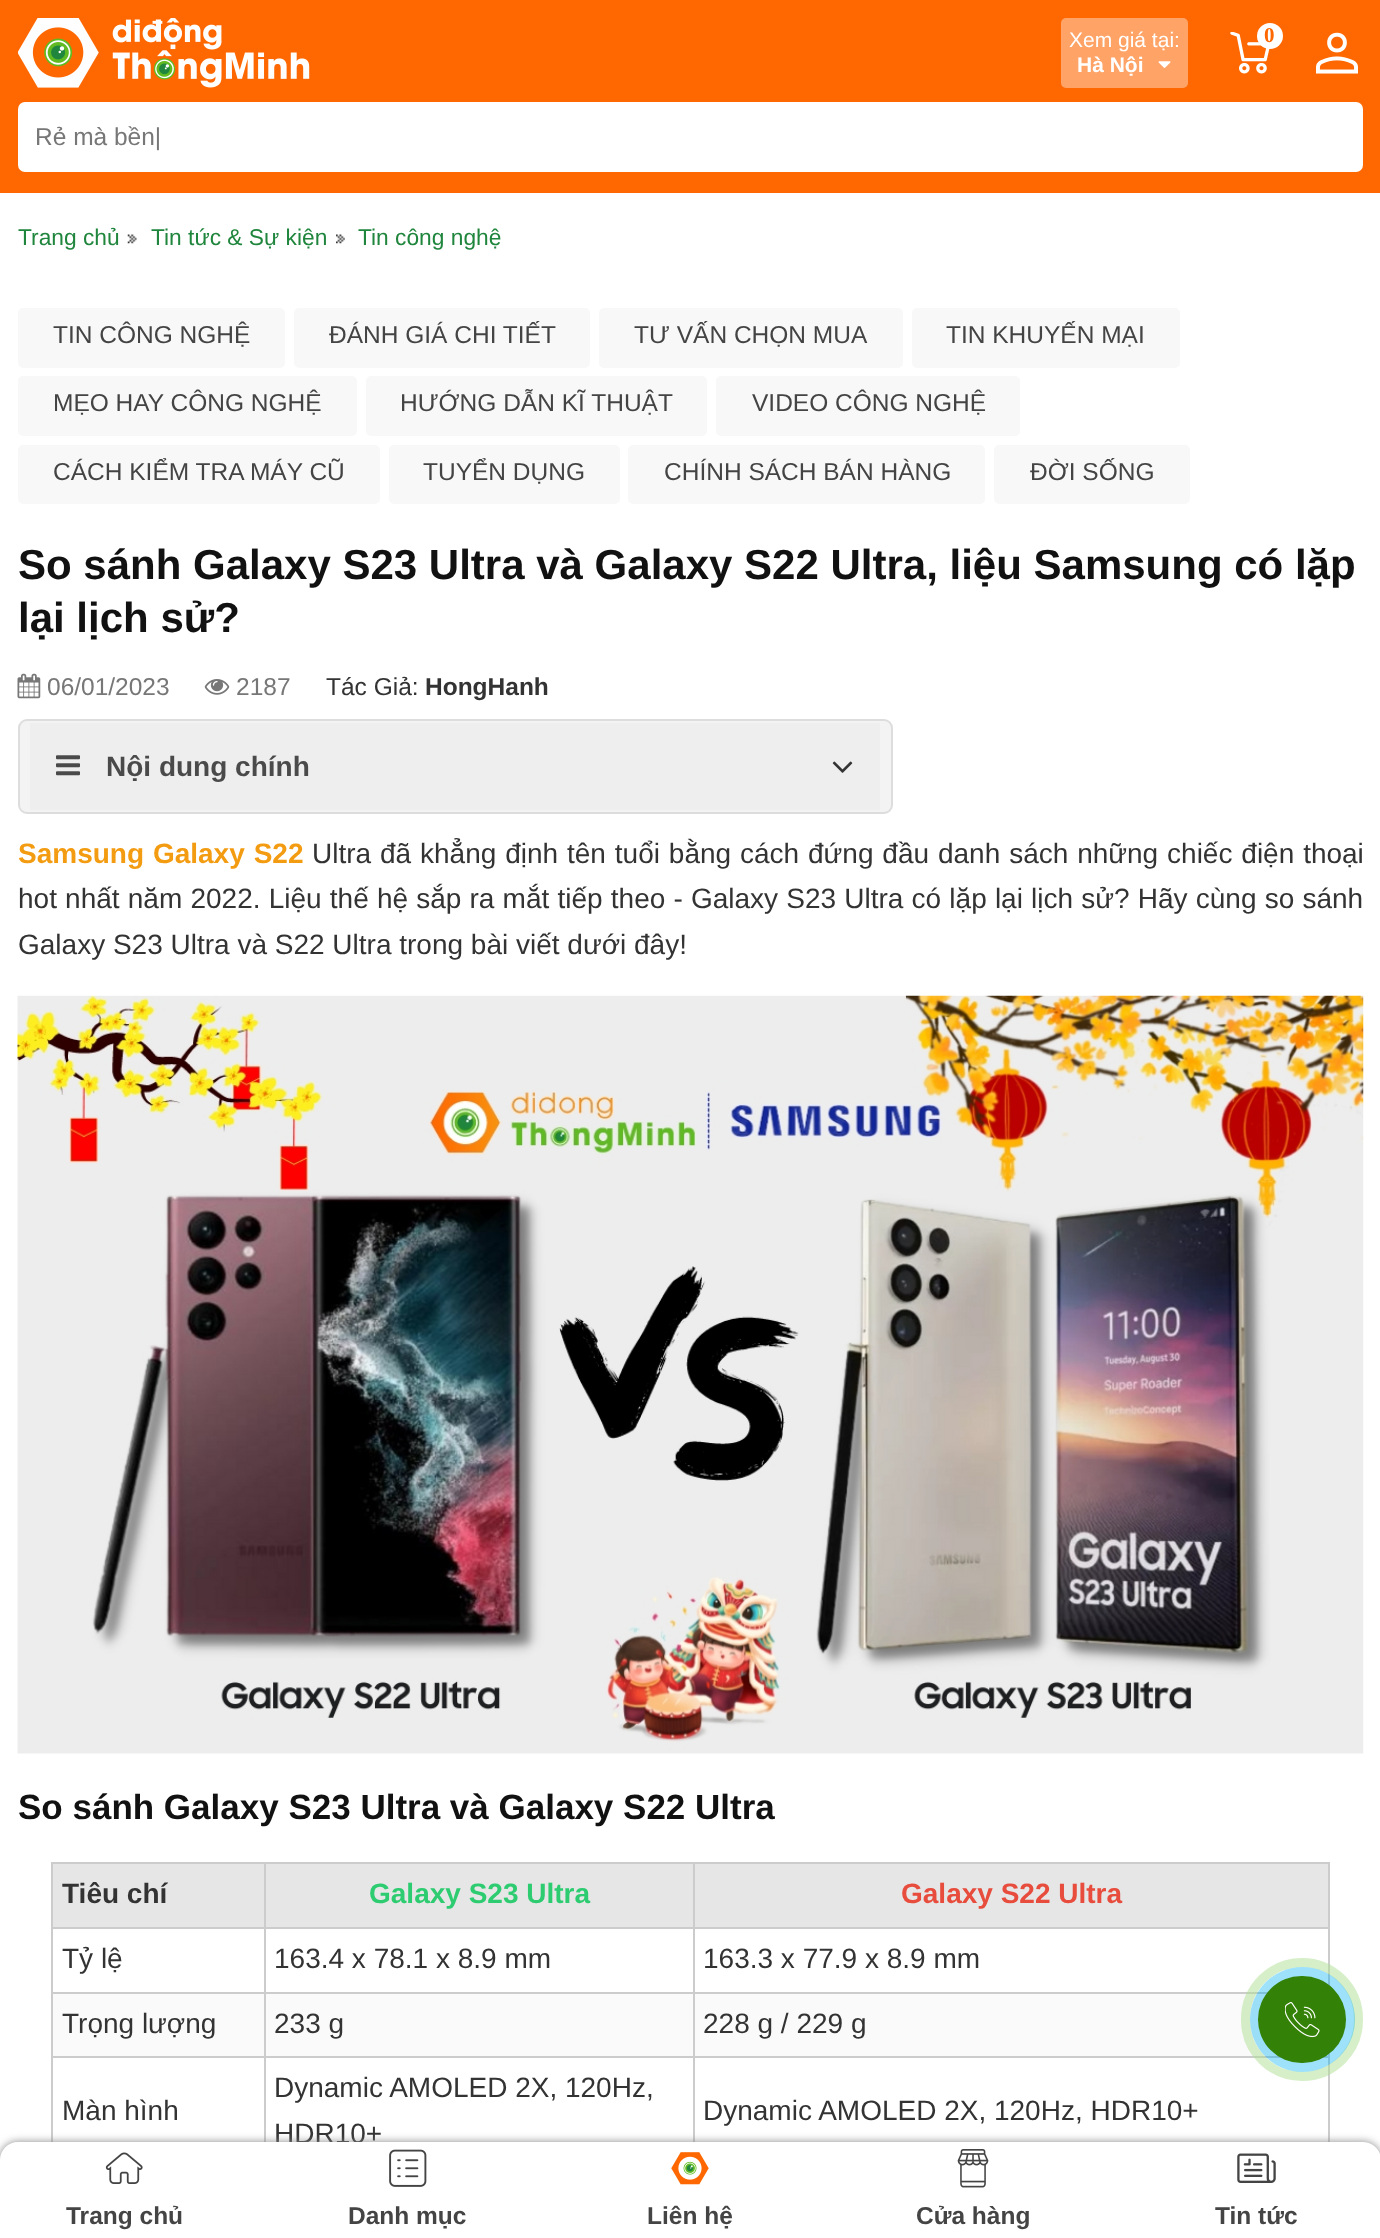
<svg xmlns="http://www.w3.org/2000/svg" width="1380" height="2238">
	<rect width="100%" height="100%" fill="#FFFFFF" />
	<rect x="0" y="0" width="1380" height="193" fill="#FF6700" />
	<image x="18" y="18" width="292" height="70" href="assets/img1.png" />
	<image x="1230" y="32" width="40" height="42" href="assets/img2.png" />
	<circle cx="1270" cy="36" r="13" fill="#FFFFFF" />
	<text x="1264" y="42" font-family="Liberation Serif" font-size="21" font-weight="700" fill="#FF6700">0</text>
	<image x="1316" y="32" width="42" height="42" href="assets/img3.png" />
	<rect x="1061" y="18" width="127" height="70" rx="5" fill="#FFA366" />
	<text x="1069" y="47" font-family="Liberation Sans" font-size="21" fill="#FFFFFF">Xem giá tại:</text>
	<text x="1077" y="72" font-family="Liberation Sans" font-size="21" font-weight="700" fill="#FFFFFF">Hà Nội</text>
	<image x="1158" y="61" width="13" height="7" href="assets/img4.png" />
	<rect x="18" y="102" width="1345" height="70" rx="7" fill="#FFFFFF" />
	<text x="35" y="145" font-family="Liberation Sans" font-size="24.5" fill="#777777">Rẻ mà bền|</text>
	<text x="18" y="245" font-family="Liberation Sans" font-size="22.75" fill="#20863D">Trang chủ</text>
	<image x="127" y="234" width="10" height="10" href="assets/img5.png" />
	<text x="151" y="245" font-family="Liberation Sans" font-size="22.75" fill="#20863D">Tin tức &amp; Sự kiện</text>
	<image x="336" y="234" width="9" height="10" href="assets/img6.png" />
	<text x="358" y="245" font-family="Liberation Sans" font-size="22.75" fill="#20863D">Tin công nghệ</text>
	<rect x="18" y="308" width="267" height="60" rx="5" fill="#F8F8F8" />
	<text x="53" y="343" font-family="Liberation Sans" font-size="24.5" fill="#444444">TIN CÔNG NGHỆ</text>
	<rect x="294" y="308" width="296" height="60" rx="5" fill="#F8F8F8" />
	<text x="329" y="343" font-family="Liberation Sans" font-size="24.5" fill="#444444">ĐÁNH GIÁ CHI TIẾT</text>
	<rect x="599" y="308" width="304" height="60" rx="5" fill="#F8F8F8" />
	<text x="634" y="343" font-family="Liberation Sans" font-size="24.5" fill="#444444">TƯ VẤN CHỌN MUA</text>
	<rect x="912" y="308" width="268" height="60" rx="5" fill="#F8F8F8" />
	<text x="946" y="343" font-family="Liberation Sans" font-size="24.5" fill="#444444">TIN KHUYẾN MẠI</text>
	<rect x="18" y="376" width="339" height="60" rx="5" fill="#F8F8F8" />
	<text x="53" y="411" font-family="Liberation Sans" font-size="24.5" fill="#444444">MẸO HAY CÔNG NGHỆ</text>
	<rect x="366" y="376" width="341" height="60" rx="5" fill="#F8F8F8" />
	<text x="400" y="411" font-family="Liberation Sans" font-size="24.5" fill="#444444">HƯỚNG DẪN KĨ THUẬT</text>
	<rect x="716" y="376" width="304" height="60" rx="5" fill="#F8F8F8" />
	<text x="752" y="411" font-family="Liberation Sans" font-size="24.5" fill="#444444">VIDEO CÔNG NGHỆ</text>
	<rect x="18" y="445" width="362" height="59" rx="5" fill="#F8F8F8" />
	<text x="53" y="480" font-family="Liberation Sans" font-size="24.5" fill="#444444">CÁCH KIỂM TRA MÁY CŨ</text>
	<rect x="389" y="445" width="231" height="59" rx="5" fill="#F8F8F8" />
	<text x="423" y="480" font-family="Liberation Sans" font-size="24.5" fill="#444444">TUYỂN DỤNG</text>
	<rect x="628" y="445" width="357" height="59" rx="5" fill="#F8F8F8" />
	<text x="664" y="480" font-family="Liberation Sans" font-size="24.5" fill="#444444">CHÍNH SÁCH BÁN HÀNG</text>
	<rect x="994" y="445" width="196" height="59" rx="5" fill="#F8F8F8" />
	<text x="1030" y="480" font-family="Liberation Sans" font-size="24.5" fill="#444444">ĐỜI SỐNG</text>
	<g font-family="Liberation Sans" font-size="42" font-weight="700" fill="#111111">
		<text x="18" y="579">So sánh Galaxy S23 Ultra và Galaxy S22 Ultra, liệu Samsung có lặp</text>
		<text x="18" y="632">lại lịch sử?</text>
	</g>
	<image x="17" y="673" width="24" height="26" href="assets/img7.png" />
	<text x="47" y="695" font-family="Liberation Sans" font-size="24.5" fill="#777777">06/01/2023</text>
	<image x="204" y="679" width="26" height="16" href="assets/img8.png" />
	<text x="236" y="695" font-family="Liberation Sans" font-size="24.5" fill="#777777">2187</text>
	<text x="326" y="695" font-family="Liberation Sans" font-size="24.5" fill="#333333">Tác Giả:</text>
	<text x="425" y="695" font-family="Liberation Sans" font-size="24.5" font-weight="700" fill="#333333">HongHanh</text>
	<rect x="19" y="720" width="873" height="93" rx="8" fill="#F3F3F3" stroke="#DDDDDD" stroke-width="2" />
	<rect x="30" y="723" width="850" height="87" fill="#EEEEEE" />
	<image x="56" y="755" width="24" height="21" href="assets/img9.png" />
	<text x="106" y="776" font-family="Liberation Sans" font-size="28" font-weight="700" fill="#4A4A4A">Nội dung chính</text>
	<image x="832" y="761" width="21" height="12" href="assets/img10.png" />
	<text x="18" y="863" word-spacing="1.1" font-family="Liberation Sans" font-size="28" font-weight="700" fill="#F39C12">Samsung Galaxy S22</text>
	<g font-family="Liberation Sans" font-size="28" fill="#333333">
		<text x="312" y="863" word-spacing="1.1">Ultra đã khẳng định tên tuổi bằng cách đứng đầu danh sách những chiếc điện thoại</text>
		<text x="18" y="908" word-spacing="0.4">hot nhất năm 2022. Liệu thế hệ sắp ra mắt tiếp theo - Galaxy S23 Ultra có lặp lại lịch sử? Hãy cùng so sánh</text>
		<text x="18" y="954">Galaxy S23 Ultra và S22 Ultra trong bài viết dưới đây!</text>
	</g>
	<image x="17" y="995" width="1347" height="759" href="assets/img11.png" />
	<text x="18" y="1819" font-family="Liberation Sans" font-size="35" font-weight="700" fill="#111111">So sánh Galaxy S23 Ultra và Galaxy S22 Ultra</text>
	<rect x="53" y="1864" width="1275" height="63" fill="#E6E6E6" />
	<rect x="693" y="1862" width="637" height="2" fill="#CCCCCC" />
	<rect x="693" y="1927" width="637" height="2" fill="#CCCCCC" />
	<rect x="693" y="1992" width="575" height="2" fill="#CCCCCC" />
	<rect x="53" y="1994" width="1275" height="62" fill="#FAFAFA" />
	<rect x="693" y="2056" width="637" height="2" fill="#CCCCCC" />
	<rect x="693" y="2056" width="2" height="86" fill="#CCCCCC" />
	<rect x="264" y="2056" width="431" height="2" fill="#CCCCCC" />
	<rect x="693" y="1992" width="2" height="66" fill="#CCCCCC" />
	<rect x="264" y="1992" width="431" height="2" fill="#CCCCCC" />
	<rect x="693" y="1927" width="2" height="66" fill="#CCCCCC" />
	<rect x="264" y="1927" width="431" height="2" fill="#CCCCCC" />
	<rect x="693" y="1862" width="2" height="67" fill="#CCCCCC" />
	<rect x="264" y="1862" width="431" height="2" fill="#CCCCCC" />
	<rect x="264" y="2056" width="2" height="86" fill="#CCCCCC" />
	<rect x="51" y="2056" width="215" height="2" fill="#CCCCCC" />
	<rect x="264" y="1992" width="2" height="66" fill="#CCCCCC" />
	<rect x="51" y="1992" width="215" height="2" fill="#CCCCCC" />
	<rect x="264" y="1927" width="2" height="66" fill="#CCCCCC" />
	<rect x="51" y="1927" width="215" height="2" fill="#CCCCCC" />
	<rect x="264" y="1862" width="2" height="67" fill="#CCCCCC" />
	<rect x="51" y="1862" width="215" height="2" fill="#CCCCCC" />
	<rect x="51" y="2056" width="2" height="86" fill="#CCCCCC" />
	<rect x="51" y="1992" width="2" height="66" fill="#CCCCCC" />
	<rect x="51" y="1927" width="2" height="66" fill="#CCCCCC" />
	<rect x="51" y="1862" width="2" height="67" fill="#CCCCCC" />
	<text x="62" y="1903" font-family="Liberation Sans" font-size="28" font-weight="700" fill="#333333">Tiêu chí</text>
	<text x="369" y="1903" font-family="Liberation Sans" font-size="28" font-weight="700" fill="#2ECC71">Galaxy S23 Ultra</text>
	<rect x="1328" y="1927" width="2" height="66" fill="#CCCCCC" />
	<rect x="1328" y="1862" width="2" height="67" fill="#CCCCCC" />
	<text x="901" y="1903" font-family="Liberation Sans" font-size="28" font-weight="700" fill="#E74C3C">Galaxy S22 Ultra</text>
	<g font-family="Liberation Sans" font-size="28" fill="#333333">
		<text x="62" y="1968">Tỷ lệ</text>
		<text x="274" y="1968">163.4 x 78.1 x 8.9 mm</text>
		<text x="703" y="1968">163.3 x 77.9 x 8.9 mm</text>
		<text x="62" y="2033">Trọng lượng</text>
		<text x="274" y="2033">233 g</text>
		<text x="703" y="2033">228 g / 229 g</text>
		<text x="62" y="2120">Màn hình</text>
		<text x="274" y="2097">Dynamic AMOLED 2X, 120Hz,</text>
		<text x="274" y="2143">HDR10+</text>
	</g>
	<rect x="1328" y="2053" width="2" height="89" fill="#CCCCCC" />
	<text x="703" y="2120" font-family="Liberation Sans" font-size="28" fill="#333333">Dynamic AMOLED 2X, 120Hz, HDR10+</text>
	<rect x="1245.5" y="1962.5" width="113" height="114" rx="56.5" fill="none" stroke="#AEE091" stroke-opacity="0.5" stroke-width="9" />
	<circle cx="1302.5" cy="2019.5" r="52.5" fill="#00AFF2" fill-opacity="0.38" />
	<rect x="1258" y="1976" width="88" height="87" rx="43.5" fill="#338106" />
	<image x="1285" y="2002" width="35" height="36" href="assets/img12.png" />
	<rect x="0" y="2142" width="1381" height="96" rx="18" fill="#888888" filter="blur(4.5px)" />
	<path d="M18 2142H1363C1373 2142 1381 2150 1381 2160V2238H0V2160C0 2150 8 2142 18 2142Z" fill="#FFFFFF" />
	<image x="105" y="2152" width="38" height="32" href="assets/img13.png" />
	<text x="66" y="2224" font-family="Liberation Sans" font-size="24.5" font-weight="700" fill="#444444">Trang chủ</text>
	<image x="389" y="2149" width="38" height="38" href="assets/img14.png" />
	<text x="348" y="2224" font-family="Liberation Sans" font-size="24.5" font-weight="700" fill="#444444">Danh mục</text>
	<image x="671" y="2152" width="38" height="33" href="assets/img15.png" />
	<text x="647" y="2224" font-family="Liberation Sans" font-size="24.5" font-weight="700" fill="#444444">Liên hệ</text>
	<image x="957" y="2149" width="32" height="39" href="assets/img16.png" />
	<text x="916" y="2224" font-family="Liberation Sans" font-size="24.5" font-weight="700" fill="#444444">Cửa hàng</text>
	<image x="1237" y="2153" width="39" height="30" href="assets/img17.png" />
	<text x="1215" y="2224" font-family="Liberation Sans" font-size="24.5" font-weight="700" fill="#444444">Tin tức</text>
</svg>
